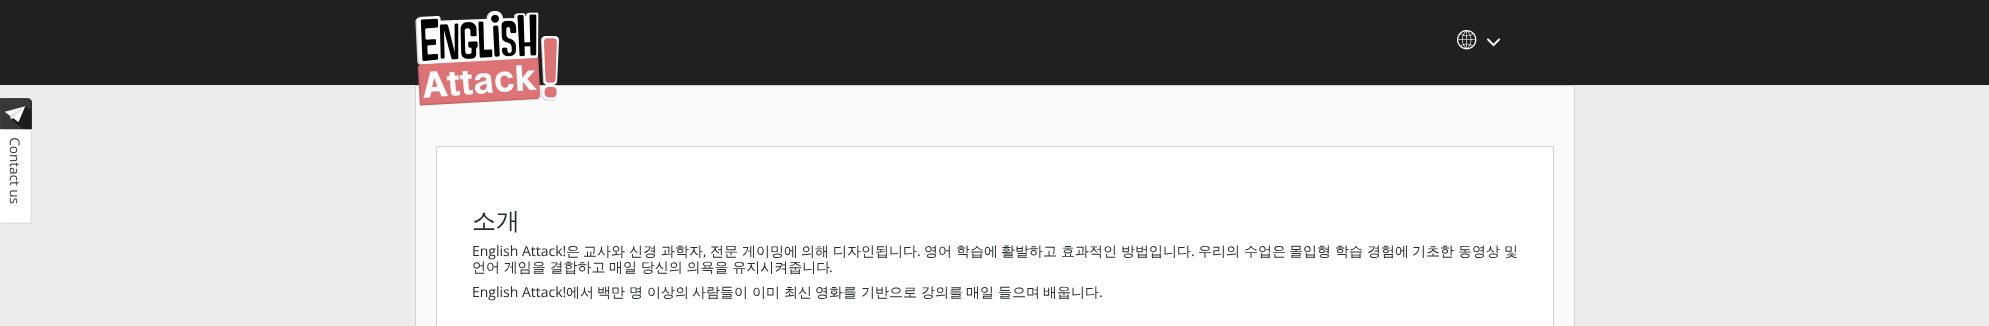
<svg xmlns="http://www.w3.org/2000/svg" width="1989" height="326">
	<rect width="100%" height="100%" fill="#EDECEC" />
	<rect x="0" y="0" width="1989" height="85" fill="#202020" />
	<rect x="415.5" y="85.5" width="1159" height="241" fill="#FAFAFA" stroke="#D3D2D2" />
	<image x="415" y="11" width="144" height="95" href="assets/img1.png" />
	<image x="1457" y="30" width="20" height="20" href="assets/img2.png" />
	<image x="1487" y="38" width="14" height="9" href="assets/img3.png" />
	<image x="0" y="98" width="32" height="126" href="assets/img4.png" />
	<rect x="436.5" y="146.5" width="1117" height="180" fill="#FFFFFF" stroke="#D3D2D2" />
	<text x="472" y="229" font-family="WenQuanYi Zen Hei" font-size="24" font-weight="500" fill="#262E31">소개</text>
	<text x="472" y="256" font-family="Open Sans" font-size="14" fill="#262E31">English Attack!</text>
	<g font-family="WenQuanYi Zen Hei" font-size="14" font-weight="500" fill="#262E31">
		<text x="566" y="256">은</text>
		<text x="583" y="256">교사와</text>
		<text x="629" y="256">신경</text>
		<text x="661" y="256">과학자</text>
	</g>
	<text x="703" y="256" font-family="Open Sans" font-size="14" fill="#262E31">,</text>
	<g font-family="WenQuanYi Zen Hei" font-size="14" font-weight="500" fill="#262E31">
		<text x="710" y="256">전문</text>
		<text x="742" y="256">게이밍에</text>
		<text x="801" y="256">의해</text>
		<text x="833" y="256">디자인됩니다</text>
	</g>
	<text x="917" y="256" font-family="Open Sans" font-size="14" fill="#262E31">.</text>
	<g font-family="WenQuanYi Zen Hei" font-size="14" font-weight="500" fill="#262E31">
		<text x="924" y="256">영어</text>
		<text x="956" y="256">학습에</text>
		<text x="1001" y="256">활발하고</text>
		<text x="1061" y="256">효과적인</text>
		<text x="1121" y="256">방법입니다</text>
	</g>
	<text x="1191" y="256" font-family="Open Sans" font-size="14" fill="#262E31">.</text>
	<g font-family="WenQuanYi Zen Hei" font-size="14" font-weight="500" fill="#262E31">
		<text x="1198" y="256">우리의</text>
		<text x="1244" y="256">수업은</text>
		<text x="1289" y="256">몰입형</text>
		<text x="1335" y="256">학습</text>
		<text x="1367" y="256">경험에</text>
		<text x="1412" y="256">기초한</text>
		<text x="1458" y="256">동영상</text>
		<text x="1504" y="256">및</text>
		<text x="472" y="272" word-spacing="-0.5">언어 게임을 결합하고 매일 당신의 의욕을 유지시켜줍니다</text>
	</g>
	<g font-family="Open Sans" font-size="14" fill="#262E31">
		<text x="829" y="272">.</text>
		<text x="472" y="297">English Attack!</text>
	</g>
	<g font-family="WenQuanYi Zen Hei" font-size="14" font-weight="500" fill="#262E31">
		<text x="566" y="297">에서</text>
		<text x="597" y="297">백만</text>
		<text x="629" y="297">명</text>
		<text x="647" y="297">이상의</text>
		<text x="692" y="297">사람들이</text>
		<text x="752" y="297">이미</text>
		<text x="784" y="297">최신</text>
		<text x="815" y="297">영화를</text>
		<text x="861" y="297">기반으로</text>
		<text x="921" y="297">강의를</text>
		<text x="966" y="297">매일</text>
		<text x="998" y="297">들으며</text>
		<text x="1043" y="297">배웁니다</text>
	</g>
	<text x="1099" y="297" font-family="Open Sans" font-size="14" fill="#262E31">.</text>
</svg>
